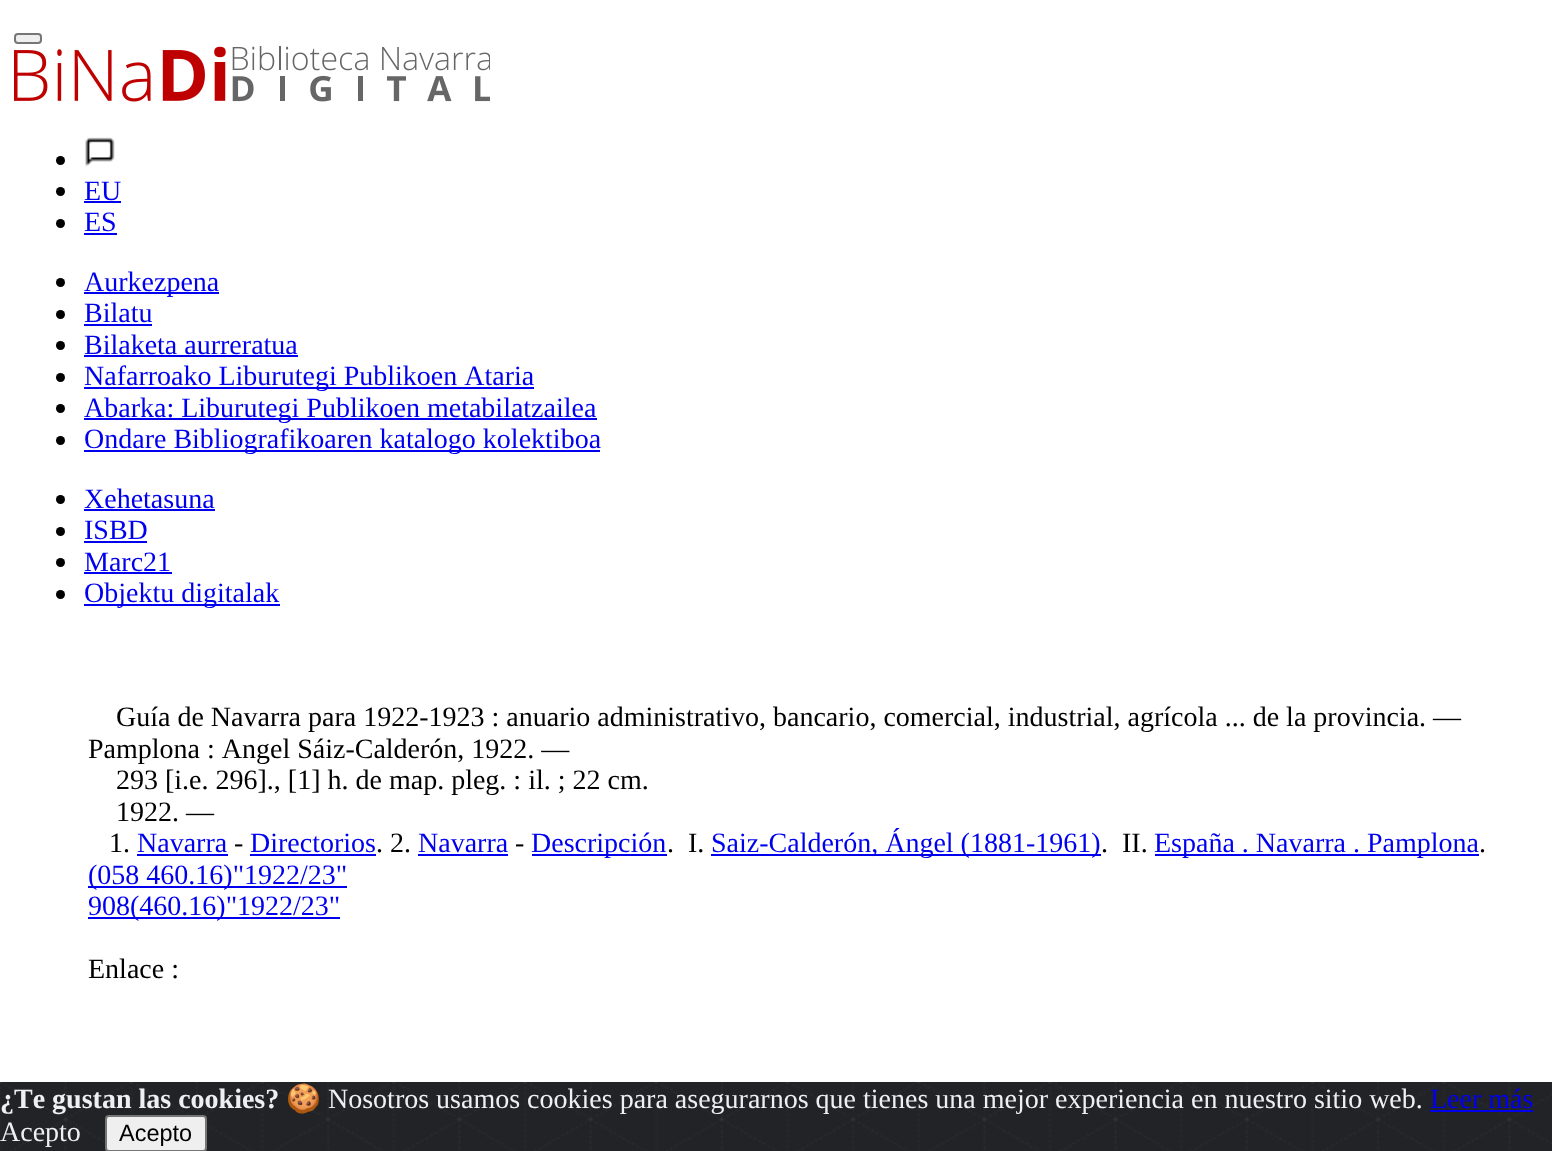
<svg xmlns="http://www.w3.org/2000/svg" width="1552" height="1151">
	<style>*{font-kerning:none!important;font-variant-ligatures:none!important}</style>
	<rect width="100%" height="100%" fill="#FFFFFF" />
	<rect x="15" y="34" width="26" height="9" rx="3" fill="#EFEFEF" stroke="#767676" stroke-width="2" />
	<image x="14" y="46" width="476" height="56" href="assets/img1.png" />
	<circle cx="60.5" cy="160.5" r="4.5" fill="#000000" />
	<image x="85" y="137" width="30" height="30" href="assets/img2.png" />
	<circle cx="60.5" cy="191.5" r="4.5" fill="#000000" />
	<text x="84" y="200" font-family="Liberation Serif" font-size="28" fill="#0000EE">EU</text>
	<rect x="84" y="201" width="37" height="2" fill="#0000EE" />
	<circle cx="60.5" cy="223.5" r="4.5" fill="#000000" />
	<text x="84" y="231" font-family="Liberation Serif" font-size="28" fill="#0000EE">ES</text>
	<rect x="84" y="233" width="33" height="2" fill="#0000EE" />
	<circle cx="60.5" cy="282.5" r="4.5" fill="#000000" />
	<rect x="84" y="292" width="135" height="2" fill="#0000EE" />
	<text x="84" y="291" font-family="Liberation Serif" font-size="28" fill="#0000EE">Aurkezpena</text>
	<circle cx="60.5" cy="314.5" r="4.5" fill="#000000" />
	<text x="84" y="322" font-family="Liberation Serif" font-size="28" fill="#0000EE">Bilatu</text>
	<rect x="84" y="324" width="68" height="2" fill="#0000EE" />
	<circle cx="60.5" cy="345.5" r="4.5" fill="#000000" />
	<text x="84" y="354" font-family="Liberation Serif" font-size="28" fill="#0000EE">Bilaketa aurreratua</text>
	<rect x="84" y="355" width="214" height="2" fill="#0000EE" />
	<circle cx="60.5" cy="377.5" r="4.5" fill="#000000" />
	<rect x="84" y="387" width="450" height="2" fill="#0000EE" />
	<text x="84" y="385" font-family="Liberation Serif" font-size="28" fill="#0000EE">Nafarroako Liburutegi Publikoen Ataria</text>
	<circle cx="60.5" cy="408.5" r="4.5" fill="#000000" />
	<rect x="84" y="418" width="513" height="2" fill="#0000EE" />
	<text x="84" y="417" font-family="Liberation Serif" font-size="28" fill="#0000EE">Abarka: Liburutegi Publikoen metabilatzailea</text>
	<circle cx="60.5" cy="440.5" r="4.5" fill="#000000" />
	<rect x="84" y="450" width="516" height="2" fill="#0000EE" />
	<text x="84" y="448" font-family="Liberation Serif" font-size="28" fill="#0000EE">Ondare Bibliografikoaren katalogo kolektiboa</text>
	<circle cx="60.5" cy="499.5" r="4.5" fill="#000000" />
	<text x="84" y="508" font-family="Liberation Serif" font-size="28" fill="#0000EE">Xehetasuna</text>
	<rect x="84" y="509" width="131" height="2" fill="#0000EE" />
	<circle cx="60.5" cy="531.5" r="4.5" fill="#000000" />
	<text x="84" y="539" font-family="Liberation Serif" font-size="28" fill="#0000EE">ISBD</text>
	<rect x="84" y="541" width="63" height="2" fill="#0000EE" />
	<circle cx="60.5" cy="562.5" r="4.5" fill="#000000" />
	<text x="84" y="571" font-family="Liberation Serif" font-size="28" fill="#0000EE">Marc21</text>
	<rect x="84" y="572" width="88" height="2" fill="#0000EE" />
	<circle cx="60.5" cy="594.5" r="4.5" fill="#000000" />
	<rect x="84" y="604" width="196" height="2" fill="#0000EE" />
	<text x="84" y="602" font-family="Liberation Serif" font-size="28" fill="#0000EE">Objektu digitalak</text>
	<g font-family="Liberation Serif" font-size="28" fill="#000000">
		<text x="116" y="726">Guía de Navarra para 1922-1923 : anuario administrativo, bancario, comercial, industrial, agrícola ... de la provincia. —</text>
		<text x="88" y="758">Pamplona : Angel Sáiz-Calderón, 1922. —</text>
		<text x="116" y="789">293 [i.e. 296]., [1] h. de map. pleg. : il. ; 22 cm.</text>
		<text x="116" y="821">1922. —</text>
		<text x="109" y="852">1.</text>
	</g>
	<text x="137" y="852" font-family="Liberation Serif" font-size="28" fill="#0000EE">Navarra</text>
	<rect x="137" y="854" width="91" height="2" fill="#0000EE" />
	<text x="234" y="852" font-family="Liberation Serif" font-size="28" fill="#000000">-</text>
	<text x="250" y="852" font-family="Liberation Serif" font-size="28" fill="#0000EE">Directorios</text>
	<rect x="250" y="854" width="126" height="2" fill="#0000EE" />
	<text x="376" y="852" font-family="Liberation Serif" font-size="28" fill="#000000">. 2.</text>
	<text x="418" y="852" font-family="Liberation Serif" font-size="28" fill="#0000EE">Navarra</text>
	<rect x="418" y="854" width="90" height="2" fill="#0000EE" />
	<text x="515" y="852" font-family="Liberation Serif" font-size="28" fill="#000000">-</text>
	<rect x="532" y="854" width="135" height="2" fill="#0000EE" />
	<text x="531" y="852" font-family="Liberation Serif" font-size="28" fill="#0000EE">Descripción</text>
	<text x="667" y="852" font-family="Liberation Serif" font-size="28" fill="#000000" xml:space="preserve">.  I.</text>
	<rect x="711" y="854" width="390" height="2" fill="#0000EE" />
	<text x="711" y="852" font-family="Liberation Serif" font-size="28" fill="#0000EE">Saiz-Calderón, Ángel (1881-1961)</text>
	<text x="1101" y="852" font-family="Liberation Serif" font-size="28" fill="#000000" xml:space="preserve">.  II.</text>
	<rect x="1155" y="854" width="324" height="2" fill="#0000EE" />
	<text x="1154" y="852" font-family="Liberation Serif" font-size="28" fill="#0000EE">España . Navarra . Pamplona</text>
	<text x="1479" y="852" font-family="Liberation Serif" font-size="28" fill="#000000">.</text>
	<rect x="88" y="886" width="259" height="2" fill="#0000EE" />
	<text x="88" y="884" font-family="Liberation Serif" font-size="28" fill="#0000EE">(058 460.16)"1922/23"</text>
	<rect x="88" y="917" width="252" height="2" fill="#0000EE" />
	<text x="88" y="915" font-family="Liberation Serif" font-size="28" fill="#0000EE">908(460.16)"1922/23"</text>
	<text x="88" y="978" font-family="Liberation Serif" font-size="28" fill="#000000">Enlace :</text>
	<image x="0" y="1082" width="1552" height="69" href="assets/img3.png" />
	<text x="0" y="1108" font-family="Liberation Serif" font-size="28" font-weight="700" fill="#ECF0F1">¿Te gustan las cookies?</text>
	<text x="286" y="1108" font-family="Noto Color Emoji" font-size="28" fill="#ECF0F1">🍪</text>
	<text x="328" y="1108" font-family="Liberation Serif" font-size="28" fill="#ECF0F1">Nosotros usamos cookies para asegurarnos que tienes una mejor experiencia en nuestro sitio web.</text>
	<text x="1430" y="1108" font-family="Liberation Serif" font-size="28" fill="#0000EE">Leer más</text>
	<rect x="1430" y="1110" width="103" height="2" fill="#0000EE" />
	<text x="0" y="1141" font-family="Liberation Serif" font-size="28" fill="#ECF0F1">Acepto</text>
	<rect x="106" y="1116" width="100" height="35" rx="3" fill="#EFEFEF" stroke="#767676" stroke-width="2" />
	<text x="119" y="1141" font-family="Liberation Sans" font-size="23.5" fill="#000000">Acepto</text>
</svg>
